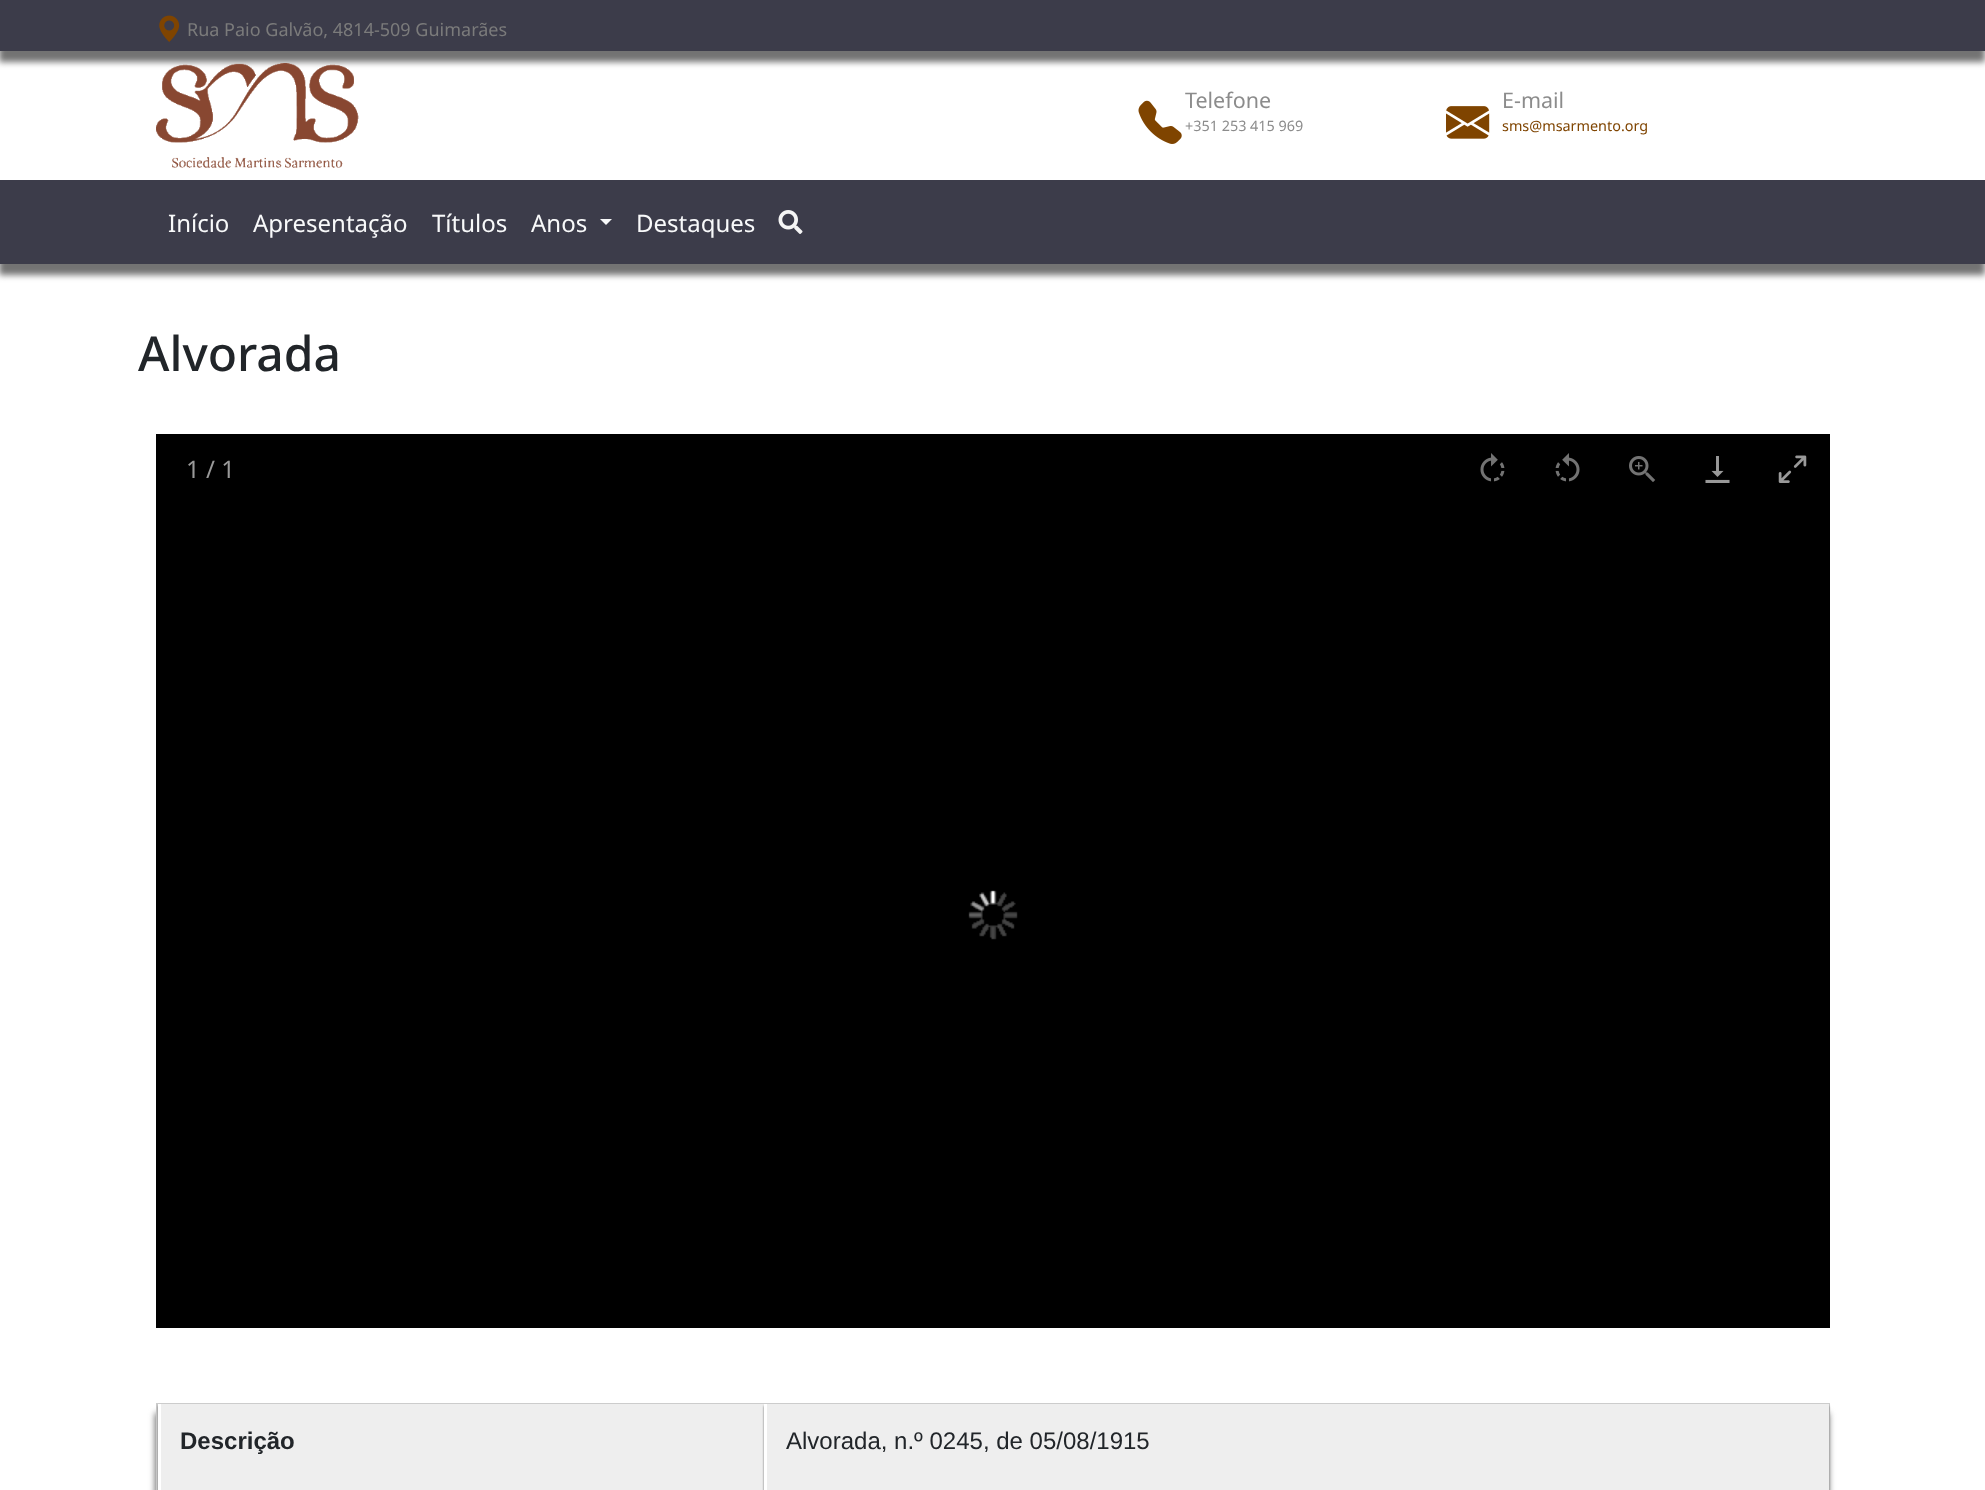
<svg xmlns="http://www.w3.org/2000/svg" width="1985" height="1490">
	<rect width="100%" height="100%" fill="#FFFFFF" />
	<rect x="-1" y="11" width="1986" height="51" fill="#737373" filter="blur(3px)" />
	<rect x="0" y="0" width="1985" height="51" fill="#3C3C4A" />
	<image x="159" y="15" width="21" height="27" href="assets/img1.png" />
	<text x="187" y="36" font-family="Noto Sans" font-size="18" fill="#7B7B7B">Rua Paio Galvão, 4814-509 Guimarães</text>
	<image x="156" y="63" width="203" height="105" href="assets/img2.png" />
	<image x="1138" y="100" width="44" height="44" href="assets/img3.png" />
	<text x="1185" y="108" font-family="Noto Sans" font-size="21.5" fill="#8C8C8C">Telefone</text>
	<text x="1185" y="131" font-family="Noto Sans" font-size="14.4" fill="#8C8C8C">+351 253 415 969</text>
	<image x="1446" y="106" width="44" height="33" href="assets/img4.png" />
	<text x="1502" y="108" font-family="Noto Sans" font-size="21.5" fill="#8C8C8C">E-mail</text>
	<text x="1502" y="131" font-family="Noto Sans" font-size="14.4" fill="#7F4400">sms@msarmento.org</text>
	<rect x="-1" y="191" width="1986" height="84" fill="#737373" filter="blur(3px)" />
	<rect x="0" y="180" width="1985" height="84" fill="#3C3C4A" />
	<g font-family="Noto Sans" font-size="24" fill="#F8F9FA">
		<text x="168" y="232">Início</text>
		<text x="253" y="232">Apresentação</text>
		<text x="432" y="232">Títulos</text>
		<text x="531" y="232">Anos</text>
	</g>
	<path d="M600 219H612L606 225Z" fill="#F8F9FA" />
	<text x="636" y="232" font-family="Noto Sans" font-size="24" fill="#F8F9FA">Destaques</text>
	<image x="778" y="210" width="25" height="24" href="assets/img5.png" />
	<text x="138" y="371" font-family="Noto Sans" font-size="48" font-weight="500" fill="#212529">Alvorada</text>
	<rect x="156" y="434" width="1674" height="894" fill="#000000" />
	<text x="186" y="478" font-family="Noto Sans" font-size="24" fill="#999999">1 / 1</text>
	<image x="1480" y="453" width="25" height="29" href="assets/img6.png" />
	<image x="1555" y="453" width="25" height="29" href="assets/img7.png" />
	<image x="1629" y="456" width="27" height="26" href="assets/img8.png" />
	<image x="1705" y="456" width="25" height="27" href="assets/img9.png" />
	<image x="1778" y="455" width="29" height="28" href="assets/img10.png" />
	<image x="968" y="890" width="50" height="50" href="assets/img11.png" />
	<rect x="155" y="1413" width="1674" height="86" fill="#737373" filter="blur(3px)" />
	<rect x="157" y="1404" width="1672" height="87" fill="none" stroke="#CCCCCC" stroke-width="2" />
	<rect x="158" y="1406" width="606" height="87" fill="#737373" filter="blur(1px)" />
	<rect x="161" y="1404" width="603" height="86" fill="#EEEEEE" />
	<rect x="158" y="1404" width="3" height="86" fill="#FFFFFF" />
	<text x="180" y="1449" font-family="Liberation Sans" font-size="24" font-weight="700" fill="#212529">Descrição</text>
	<rect x="764" y="1406" width="1065" height="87" fill="#737373" filter="blur(1px)" />
	<rect x="767" y="1404" width="1062" height="86" fill="#EEEEEE" />
	<rect x="764" y="1404" width="3" height="86" fill="#FFFFFF" />
	<text x="786" y="1449" font-family="Liberation Sans" font-size="24" fill="#212529">Alvorada, n.º 0245, de 05/08/1915</text>
</svg>
